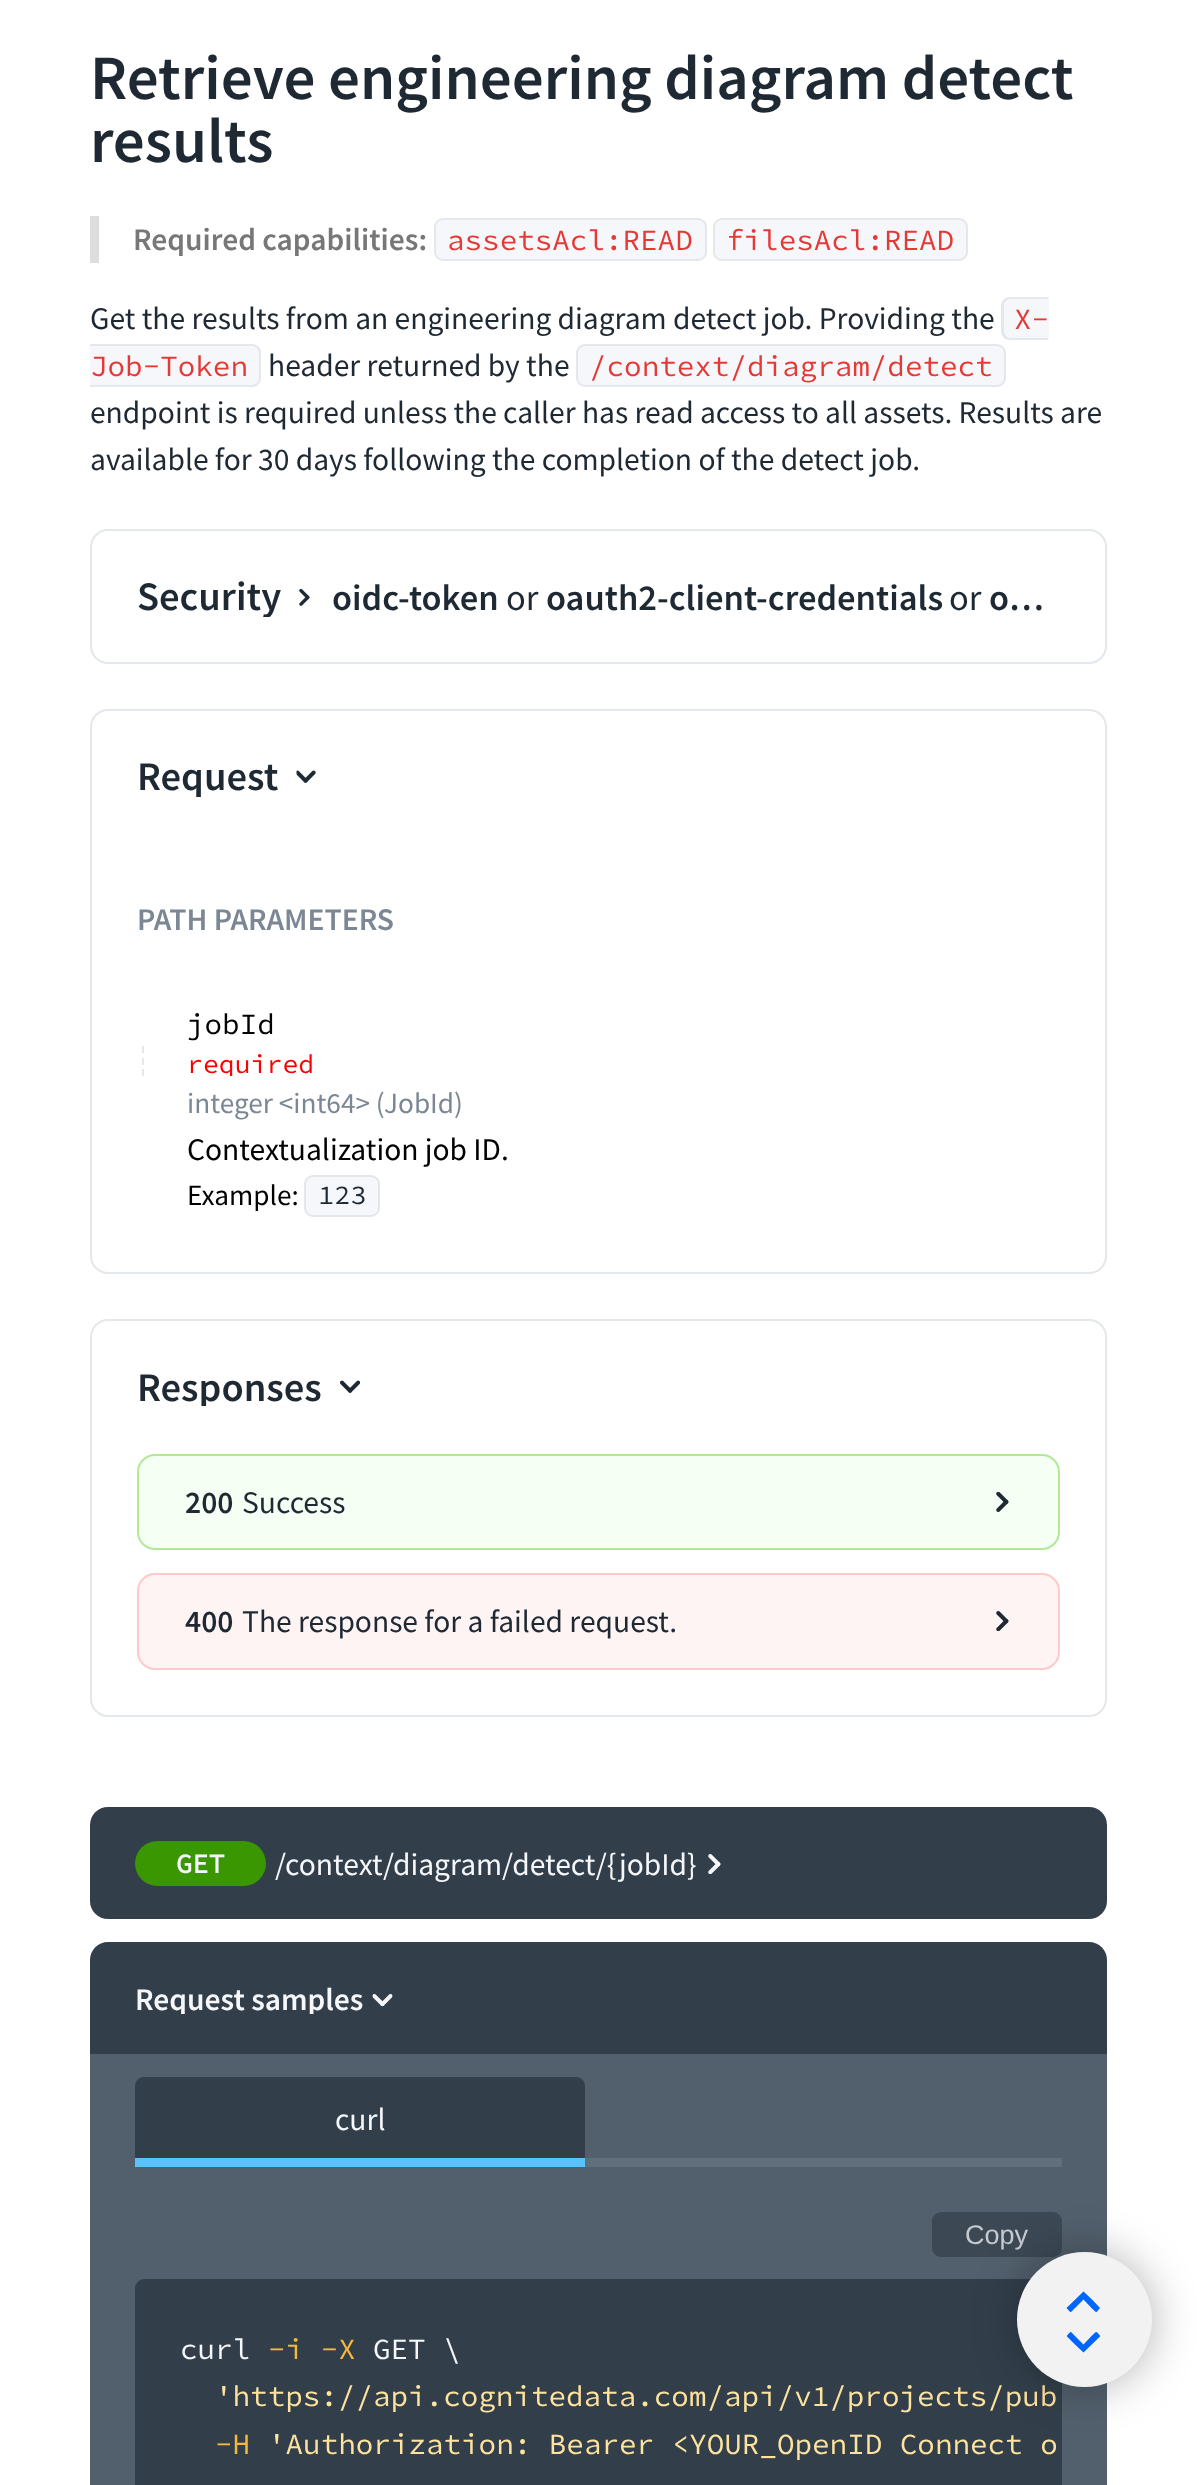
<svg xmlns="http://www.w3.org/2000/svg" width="1197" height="2485">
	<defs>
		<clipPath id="clip1"><rect x="137" y="576" width="923" height="41" /></clipPath>
		<clipPath id="clip2"><rect x="137" y="756" width="203" height="41" /></clipPath>
		<clipPath id="clip3"><rect x="142" y="999" width="450" height="77" /></clipPath>
		<clipPath id="clip4"><rect x="137" y="1366" width="246" height="40" /></clipPath>
		<clipPath id="clip5"><rect x="135" y="1982" width="281" height="32" /></clipPath>
		<clipPath id="clip6"><rect x="1067" y="2331" width="33" height="23" /></clipPath>
	</defs>
	<rect width="100%" height="100%" fill="#FFFFFF" />
	<g font-family="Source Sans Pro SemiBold" font-size="63" font-weight="600" fill="#1F2933">
		<text x="90" y="99">Retrieve engineering diagram detect</text>
		<text x="90" y="162">results</text>
	</g>
	<rect x="90" y="216" width="9" height="47" fill="#DDDDDD" />
	<text x="133" y="250" font-family="Source Sans Pro SemiBold" font-size="31.5" font-weight="600" fill="#777777">Required capabilities:</text>
	<rect x="435" y="219" width="271" height="41" rx="8" fill="#F5F7FA" stroke="#E4E7EB" stroke-width="2" />
	<text x="447" y="250" font-family="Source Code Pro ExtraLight" font-size="29.25" font-weight="200" fill="#E53935">assetsAcl:READ</text>
	<rect x="714" y="219" width="253" height="41" rx="8" fill="#F5F7FA" stroke="#E4E7EB" stroke-width="2" />
	<text x="726" y="250" font-family="Source Code Pro ExtraLight" font-size="29.25" font-weight="200" fill="#E53935">filesAcl:READ</text>
	<text x="90" y="329" font-family="Source Sans Pro" font-size="31.5" fill="#1F2933">Get the results from an engineering diagram detect job. Providing the</text>
	<path d="M1010 297H1049V340H1010C1005 340 1001 336 1001 331V306C1001 301 1005 297 1010 297Z" fill="#F5F7FA" />
	<path d="M1010 297H1048V340H1010C1005 340 1001 336 1001 331V306C1001 301 1005 297 1010 297ZM1010 299H1048V338H1010C1007 338 1004 334 1004 331V306C1004 302 1007 299 1010 299Z" fill="#E4E7EB" fill-rule="evenodd" />
	<text x="1014" y="329" font-family="Source Code Pro ExtraLight" font-size="29.25" font-weight="200" fill="#E53935">X-</text>
	<path d="M90 344H252C257 344 261 348 261 353V378C261 383 257 387 252 387H90Z" fill="#F5F7FA" />
	<path d="M90 344H252C257 344 261 348 261 353V378C261 383 257 387 252 387H90ZM90 346H252C256 346 259 350 259 353V378C259 382 256 385 252 385H90Z" fill="#E4E7EB" fill-rule="evenodd" />
	<text x="90" y="376" font-family="Source Code Pro ExtraLight" font-size="29.25" font-weight="200" fill="#E53935">Job-Token</text>
	<text x="268" y="376" font-family="Source Sans Pro" font-size="31.5" fill="#1F2933">header returned by the</text>
	<rect x="577" y="345" width="428" height="41" rx="8" fill="#F5F7FA" stroke="#E4E7EB" stroke-width="2" />
	<text x="589" y="376" font-family="Source Code Pro ExtraLight" font-size="29.25" font-weight="200" fill="#E53935">/context/diagram/detect</text>
	<g font-family="Source Sans Pro" font-size="31.5" fill="#1F2933">
		<text x="90" y="423">endpoint is required unless the caller has read access to all assets. Results are</text>
		<text x="90" y="470">available for 30 days following the completion of the detect job.</text>
	</g>
	<rect x="91" y="530" width="1015" height="133" rx="17" fill="none" stroke="#E4E7EB" stroke-width="2" />
	<g clip-path="url(#clip1)">
		<text x="137" y="610" font-family="Source Sans Pro SemiBold" font-size="40.5" font-weight="600" fill="#1F2933">Security</text>
	</g>
	<image x="299" y="588" width="11" height="18" href="assets/img1.png" />
	<text x="332" y="610" font-family="Source Sans Pro SemiBold" font-size="36.5" font-weight="600" fill="#1F2933">oidc-token</text>
	<text x="506" y="610" font-family="Source Sans Pro" font-size="36.5" fill="#1F2933">or</text>
	<text x="546" y="610" font-family="Source Sans Pro SemiBold" font-size="36.5" font-weight="600" fill="#1F2933">oauth2-client-credentials</text>
	<text x="949" y="610" font-family="Source Sans Pro" font-size="36.5" fill="#1F2933">or</text>
	<text x="989" y="610" font-family="Source Sans Pro SemiBold" font-size="36.5" font-weight="600" fill="#1F2933">o…</text>
	<rect x="91" y="710" width="1015" height="563" rx="17" fill="none" stroke="#E4E7EB" stroke-width="2" />
	<g clip-path="url(#clip2)">
		<text x="137" y="790" font-family="Source Sans Pro SemiBold" font-size="40.5" font-weight="600" fill="#1F2933">Request</text>
	</g>
	<image x="296" y="770" width="20" height="13" href="assets/img2.png" />
	<text x="137" y="930" font-family="Source Sans Pro SemiBold" font-size="31.5" font-weight="600" fill="#7B8794">PATH PARAMETERS</text>
	<rect x="142" y="1069" width="2" height="7" fill="#E4E7EB" />
	<rect x="142" y="1058" width="2" height="7" fill="#E4E7EB" />
	<rect x="142" y="1046" width="2" height="7" fill="#E4E7EB" />
	<text x="187" y="1034" font-family="Source Code Pro ExtraLight" font-size="29.25" font-weight="200" fill="#000000">jobId</text>
	<g clip-path="url(#clip3)">
		<text x="187" y="1073" font-family="Source Code Pro ExtraLight" font-size="26.5" font-weight="200" fill="#FF0000">required</text>
	</g>
	<g font-family="Source Sans Pro" font-size="29.25" fill="#7B8794">
		<text x="187" y="1113">integer &lt;int64&gt; (</text>
		<text x="384" y="1113">JobId)</text>
	</g>
	<text x="187" y="1160" font-family="Source Sans Pro" font-size="31.5" fill="#000000">Contextualization job ID.</text>
	<text x="187" y="1205" font-family="Source Sans Pro" font-size="29.25" fill="#000000">Example:</text>
	<rect x="305" y="1176" width="74" height="40" rx="8" fill="#F5F7FA" stroke="#E4E7EB" stroke-width="2" />
	<text x="318" y="1204" font-family="Source Code Pro ExtraLight" font-size="27" font-weight="200" fill="#1F2933">123</text>
	<rect x="91" y="1320" width="1015" height="396" rx="17" fill="none" stroke="#E4E7EB" stroke-width="2" />
	<g clip-path="url(#clip4)">
		<text x="137" y="1401" font-family="Source Sans Pro SemiBold" font-size="40.5" font-weight="600" fill="#1F2933">Responses</text>
	</g>
	<image x="340" y="1380" width="21" height="13" href="assets/img3.png" />
	<rect x="138" y="1455" width="921" height="94" rx="17" fill="#F6FFF4" stroke="#B1E996" stroke-width="2" />
	<text x="185" y="1513" font-family="Source Sans Pro SemiBold" font-size="31.5" font-weight="600" fill="#1F2933">200</text>
	<text x="242" y="1513" font-family="Source Sans Pro" font-size="31.5" fill="#1F2933">Success</text>
	<image x="996" y="1492" width="13" height="20" href="assets/img4.png" />
	<rect x="138" y="1574" width="921" height="95" rx="17" fill="#FFF4F4" stroke="#FFC9C9" stroke-width="2" />
	<text x="185" y="1632" font-family="Source Sans Pro SemiBold" font-size="31.5" font-weight="600" fill="#1F2933">400</text>
	<text x="242" y="1632" font-family="Source Sans Pro" font-size="31.5" fill="#1F2933">The response for a failed request.</text>
	<image x="996" y="1611" width="13" height="20" href="assets/img5.png" />
	<rect x="90" y="1807" width="1017" height="112" rx="18" fill="#323F4B" />
	<rect x="135" y="1841" width="131" height="45" rx="22.5" fill="#3A9601" />
	<text x="176" y="1873" font-family="Source Code Pro ExtraLight" font-size="27" font-weight="700" fill="#F5F7FA">GET</text>
	<text x="275" y="1875" font-family="Source Sans Pro" font-size="31.5" fill="#F5F7FA">/context/diagram/detect/{jobId}</text>
	<image x="708" y="1854" width="13" height="20" href="assets/img6.png" />
	<path d="M108 1942H1089C1099 1942 1107 1950 1107 1960V2054H90V1960C90 1950 98 1942 108 1942Z" fill="#323F4B" />
	<g clip-path="url(#clip5)">
		<text x="135" y="2010" font-family="Source Sans Pro SemiBold" font-size="31.5" font-weight="600" fill="#F5F7FA">Request samples</text>
	</g>
	<image x="372" y="1994" width="21" height="13" href="assets/img7.png" />
	<rect x="90" y="2054" width="1017" height="431" fill="#52606D" />
	<rect x="585" y="2158" width="477" height="9" fill="#616E7C" />
	<path d="M144 2077H576C581 2077 585 2081 585 2086V2167H135V2086C135 2081 139 2077 144 2077Z" fill="#323F4B" />
	<rect x="135" y="2158" width="450" height="9" fill="#59C3FF" />
	<text x="335" y="2130" font-family="Source Sans Pro" font-size="31.5" fill="#F5F7FA">curl</text>
	<rect x="932" y="2212" width="130" height="45" rx="9" fill="#3C4955" />
	<text x="965" y="2244" font-family="Liberation Sans" font-size="27" fill="#C4CAD0">Copy</text>
	<rect x="135" y="2279" width="927" height="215" rx="9" fill="#323F4B" />
	<text x="180" y="2359" font-family="Source Code Pro ExtraLight" font-size="29.25" font-weight="200" fill="#F5F7FA">curl</text>
	<text x="268" y="2359" font-family="Source Code Pro ExtraLight" font-size="29.25" font-weight="200" fill="#F5B83D">-i -X</text>
	<text x="373" y="2359" font-family="Source Code Pro ExtraLight" font-size="29.25" font-weight="200" fill="#F5F7FA">GET \</text>
	<text x="215" y="2406" font-family="Source Code Pro ExtraLight" font-size="29.25" font-weight="200" fill="#FEE39E">'https://api.cognitedata.com/api/v1/projects/pub</text>
	<text x="215" y="2454" font-family="Source Code Pro ExtraLight" font-size="29.25" font-weight="200" fill="#F5B83D">-H</text>
	<text x="268" y="2454" font-family="Source Code Pro ExtraLight" font-size="29.25" font-weight="200" fill="#FEE39E">'Authorization: Bearer &lt;YOUR_OpenID Connect o</text>
	<rect x="1017" y="2252" width="135" height="135" rx="67.5" fill="#000000" fill-opacity="0.3" filter="blur(22.5px)" />
	<circle cx="1084.5" cy="2319.5" r="67.5" fill="#F2F2F2" />
	<path d="M1092 2299.5L1100 2308C1095.5 2313 1097.5 2313.5 1092 2308.5L1083.5 2299.5L1074.5 2308.5C1069.5 2313.5 1071.5 2313 1066.5 2308L1083.5 2291.5Z" fill="#0065FB" />
	<g clip-path="url(#clip6)">
		<path d="M1075 2344.5L1066.5 2336C1071.5 2331 1069.5 2330.5 1074.5 2335.5L1083.5 2344.5L1092 2335.5C1097.5 2330.5 1095.5 2331 1100.5 2336L1083.5 2352.5Z" fill="#0065FB" />
	</g>
</svg>
